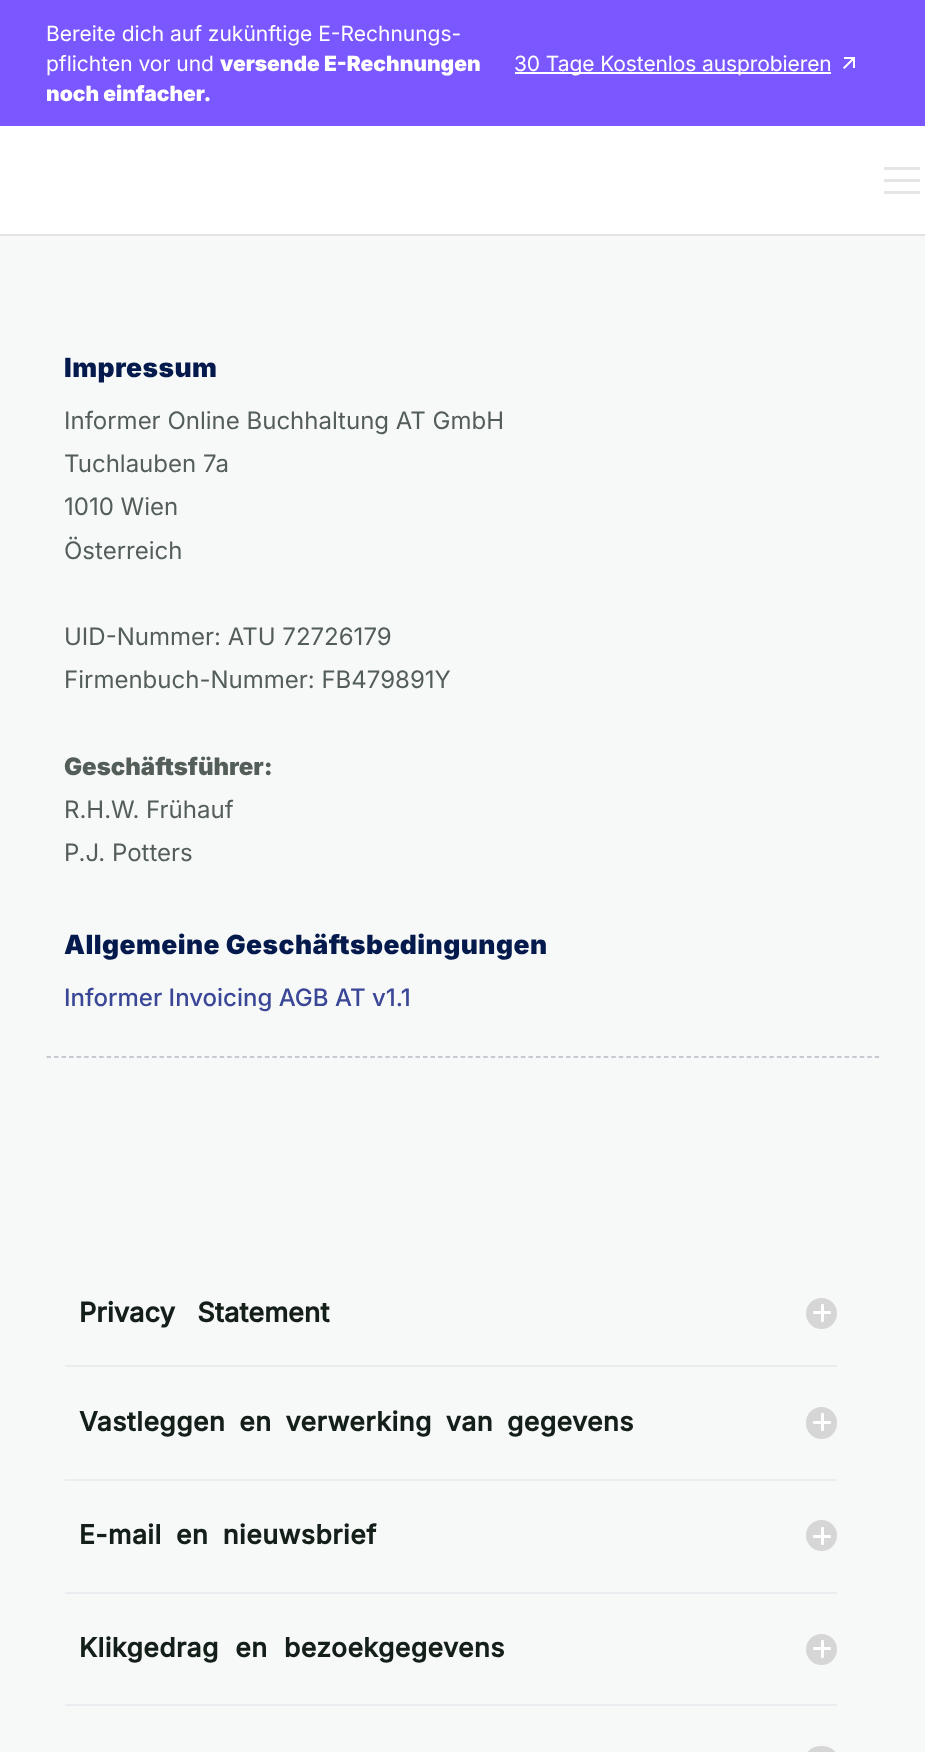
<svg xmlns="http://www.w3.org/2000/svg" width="925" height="1752">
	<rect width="100%" height="100%" fill="#F7F8F8" />
	<rect x="0" y="126" width="925" height="108" fill="#FFFFFF" />
	<rect x="0" y="234" width="925" height="2" fill="#E3E3E3" />
	<rect x="0" y="0" width="925" height="126" fill="#7A57FF" />
	<g font-family="Inter" font-size="21" fill="#FFFFFF">
		<text x="46" y="41">Bereite dich auf zukünftige E-Rechnungs-</text>
		<text x="46" y="71">pflichten vor und</text>
	</g>
	<g font-family="Inter" font-size="21" font-weight="900" fill="#FFFFFF">
		<text x="220" y="71">versende E-Rechnungen</text>
		<text x="46" y="101">noch einfacher.</text>
	</g>
	<rect x="515" y="72" width="316" height="2" fill="#FFFFFF" />
	<text x="514" y="71" font-family="Inter" font-size="21" letter-spacing="-0.1" fill="#FFFFFF">30 Tage Kostenlos ausprobieren</text>
	<image x="843" y="57" width="12" height="12" href="assets/img1.png" />
	<rect x="884" y="167" width="36" height="3" fill="#E5E5E5" />
	<rect x="884" y="179" width="36" height="3" fill="#E5E5E5" />
	<rect x="884" y="191" width="36" height="3" fill="#E5E5E5" />
	<text x="64" y="377" font-family="Inter" font-size="26.4" font-weight="900" letter-spacing="0.45" fill="#041A4D">Impressum</text>
	<g font-family="Inter" font-size="24" fill="#545E59">
		<text x="64" y="429">Informer Online Buchhaltung AT GmbH</text>
		<text x="64" y="472">Tuchlauben 7a</text>
		<text x="64" y="515">1010 Wien</text>
		<text x="64" y="559">Österreich</text>
		<text x="64" y="645">UID-Nummer: ATU 72726179</text>
		<text x="64" y="688">Firmenbuch-Nummer: FB479891Y</text>
	</g>
	<text x="64" y="775" font-family="Inter" font-size="24" font-weight="900" fill="#545E59">Geschäftsführer:</text>
	<g font-family="Inter" font-size="24" fill="#545E59">
		<text x="64" y="818">R.H.W. Frühauf</text>
		<text x="64" y="861">P.J. Potters</text>
	</g>
	<text x="64" y="954" font-family="Inter" font-size="26.4" font-weight="900" letter-spacing="0.45" fill="#041A4D">Allgemeine Geschäftsbedingungen</text>
	<text x="64" y="1006" font-family="Inter" font-size="24" font-weight="500" fill="#3A4797">Informer Invoicing AGB AT v1.1</text>
	<path d="M46.5 1057H879" fill="none" stroke="#B5BBC4" stroke-width="1.5" stroke-dasharray="4.5 3.03" />
	<rect x="65" y="1365" width="772" height="2" fill="#EAECF0" />
	<text x="79" y="1322" word-spacing="15" font-family="Inter" font-size="27" font-weight="700" fill="#141F19">Privacy Statement</text>
	<circle cx="821.5" cy="1313.5" r="15.5" fill="#D6D6D6" />
	<rect x="813" y="1311" width="18" height="3" rx="1" fill="#FFFFFF" />
	<rect x="821" y="1304" width="3" height="18" rx="1" fill="#FFFFFF" />
	<rect x="65" y="1479" width="772" height="2" fill="#EAECF0" />
	<text x="79" y="1431" word-spacing="6.5" font-family="Inter" font-size="26.4" font-weight="700" letter-spacing="0.45" fill="#141F19">Vastleggen en verwerking van gegevens</text>
	<rect x="806" y="1407" width="31" height="32" rx="15.5" fill="#D6D6D6" />
	<rect x="813" y="1421" width="18" height="3" rx="1" fill="#FFFFFF" />
	<rect x="821" y="1413" width="3" height="18" rx="1" fill="#FFFFFF" />
	<rect x="65" y="1592" width="772" height="2" fill="#EAECF0" />
	<text x="79" y="1544" word-spacing="7" font-family="Inter" font-size="26.4" font-weight="700" letter-spacing="0.45" fill="#141F19">E-mail en nieuwsbrief</text>
	<circle cx="821.5" cy="1535.5" r="15.5" fill="#D6D6D6" />
	<rect x="813" y="1535" width="18" height="3" rx="1" fill="#FFFFFF" />
	<rect x="821" y="1527" width="3" height="18" rx="1" fill="#FFFFFF" />
	<rect x="65" y="1704" width="772" height="2" fill="#EAECF0" />
	<text x="79" y="1657" word-spacing="9" font-family="Inter" font-size="26.4" font-weight="700" letter-spacing="0.45" fill="#141F19">Klikgedrag en bezoekgegevens</text>
	<circle cx="821.5" cy="1649.5" r="15.5" fill="#D6D6D6" />
	<rect x="813" y="1647" width="18" height="3" rx="1" fill="#FFFFFF" />
	<rect x="821" y="1640" width="3" height="18" rx="1" fill="#FFFFFF" />
	<rect x="806" y="1746" width="31" height="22" rx="15.5" fill="#D6D6D6" />
</svg>
